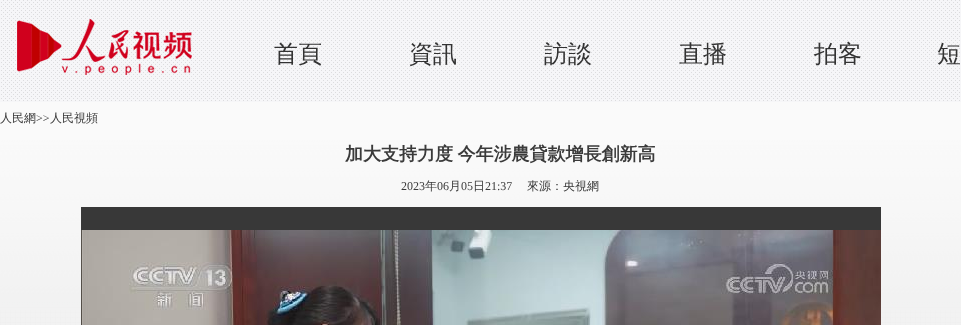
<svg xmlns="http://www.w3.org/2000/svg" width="961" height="325">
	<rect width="100%" height="100%" fill="#FFFFFF" />
	<image x="0" y="0" width="961" height="102" href="assets/img1.png" />
	<image x="17" y="19" width="175" height="56" href="assets/img2.png" />
	<g font-family="WenQuanYi Zen Hei" font-size="24" font-weight="500" fill="#333333">
		<text x="274" y="62">首頁</text>
		<text x="409" y="62">資訊</text>
		<text x="544" y="62">訪談</text>
		<text x="679" y="62">直播</text>
		<text x="814" y="62">拍客</text>
		<text x="937" y="62">短</text>
	</g>
	<image x="0" y="102" width="961" height="223" href="assets/img3.png" />
	<text x="0" y="122" font-family="WenQuanYi Zen Hei" font-size="12" font-weight="500" fill="#3A3A3A">人民網</text>
	<text x="36" y="122" font-family="Liberation Serif" font-size="12" fill="#3A3A3A">&gt;&gt;</text>
	<text x="50" y="122" font-family="WenQuanYi Zen Hei" font-size="12" font-weight="500" fill="#3A3A3A">人民視頻</text>
	<text x="345" y="160" word-spacing="-1" font-family="WenQuanYi Zen Hei" font-size="18" font-weight="700" fill="#3A3A3A">加大支持力度 今年涉農貸款增長創新高</text>
	<text x="401" y="190" font-family="Liberation Serif" font-size="12" fill="#3A3A3A">2023</text>
	<text x="425" y="190" font-family="WenQuanYi Zen Hei" font-size="12" font-weight="500" fill="#3A3A3A">年</text>
	<text x="437" y="190" font-family="Liberation Serif" font-size="12" fill="#3A3A3A">06</text>
	<text x="449" y="190" font-family="WenQuanYi Zen Hei" font-size="12" font-weight="500" fill="#3A3A3A">月</text>
	<text x="461" y="190" font-family="Liberation Serif" font-size="12" fill="#3A3A3A">05</text>
	<text x="473" y="190" font-family="WenQuanYi Zen Hei" font-size="12" font-weight="500" fill="#3A3A3A">日</text>
	<text x="485" y="190" font-family="Liberation Serif" font-size="12" fill="#3A3A3A">21:37</text>
	<text x="527" y="190" font-family="WenQuanYi Zen Hei" font-size="12" font-weight="500" fill="#3A3A3A">來源：央視網</text>
	<rect x="81" y="207" width="800" height="23" fill="#383838" />
	<image x="81" y="230" width="800" height="95" href="assets/img4.png" />
</svg>
